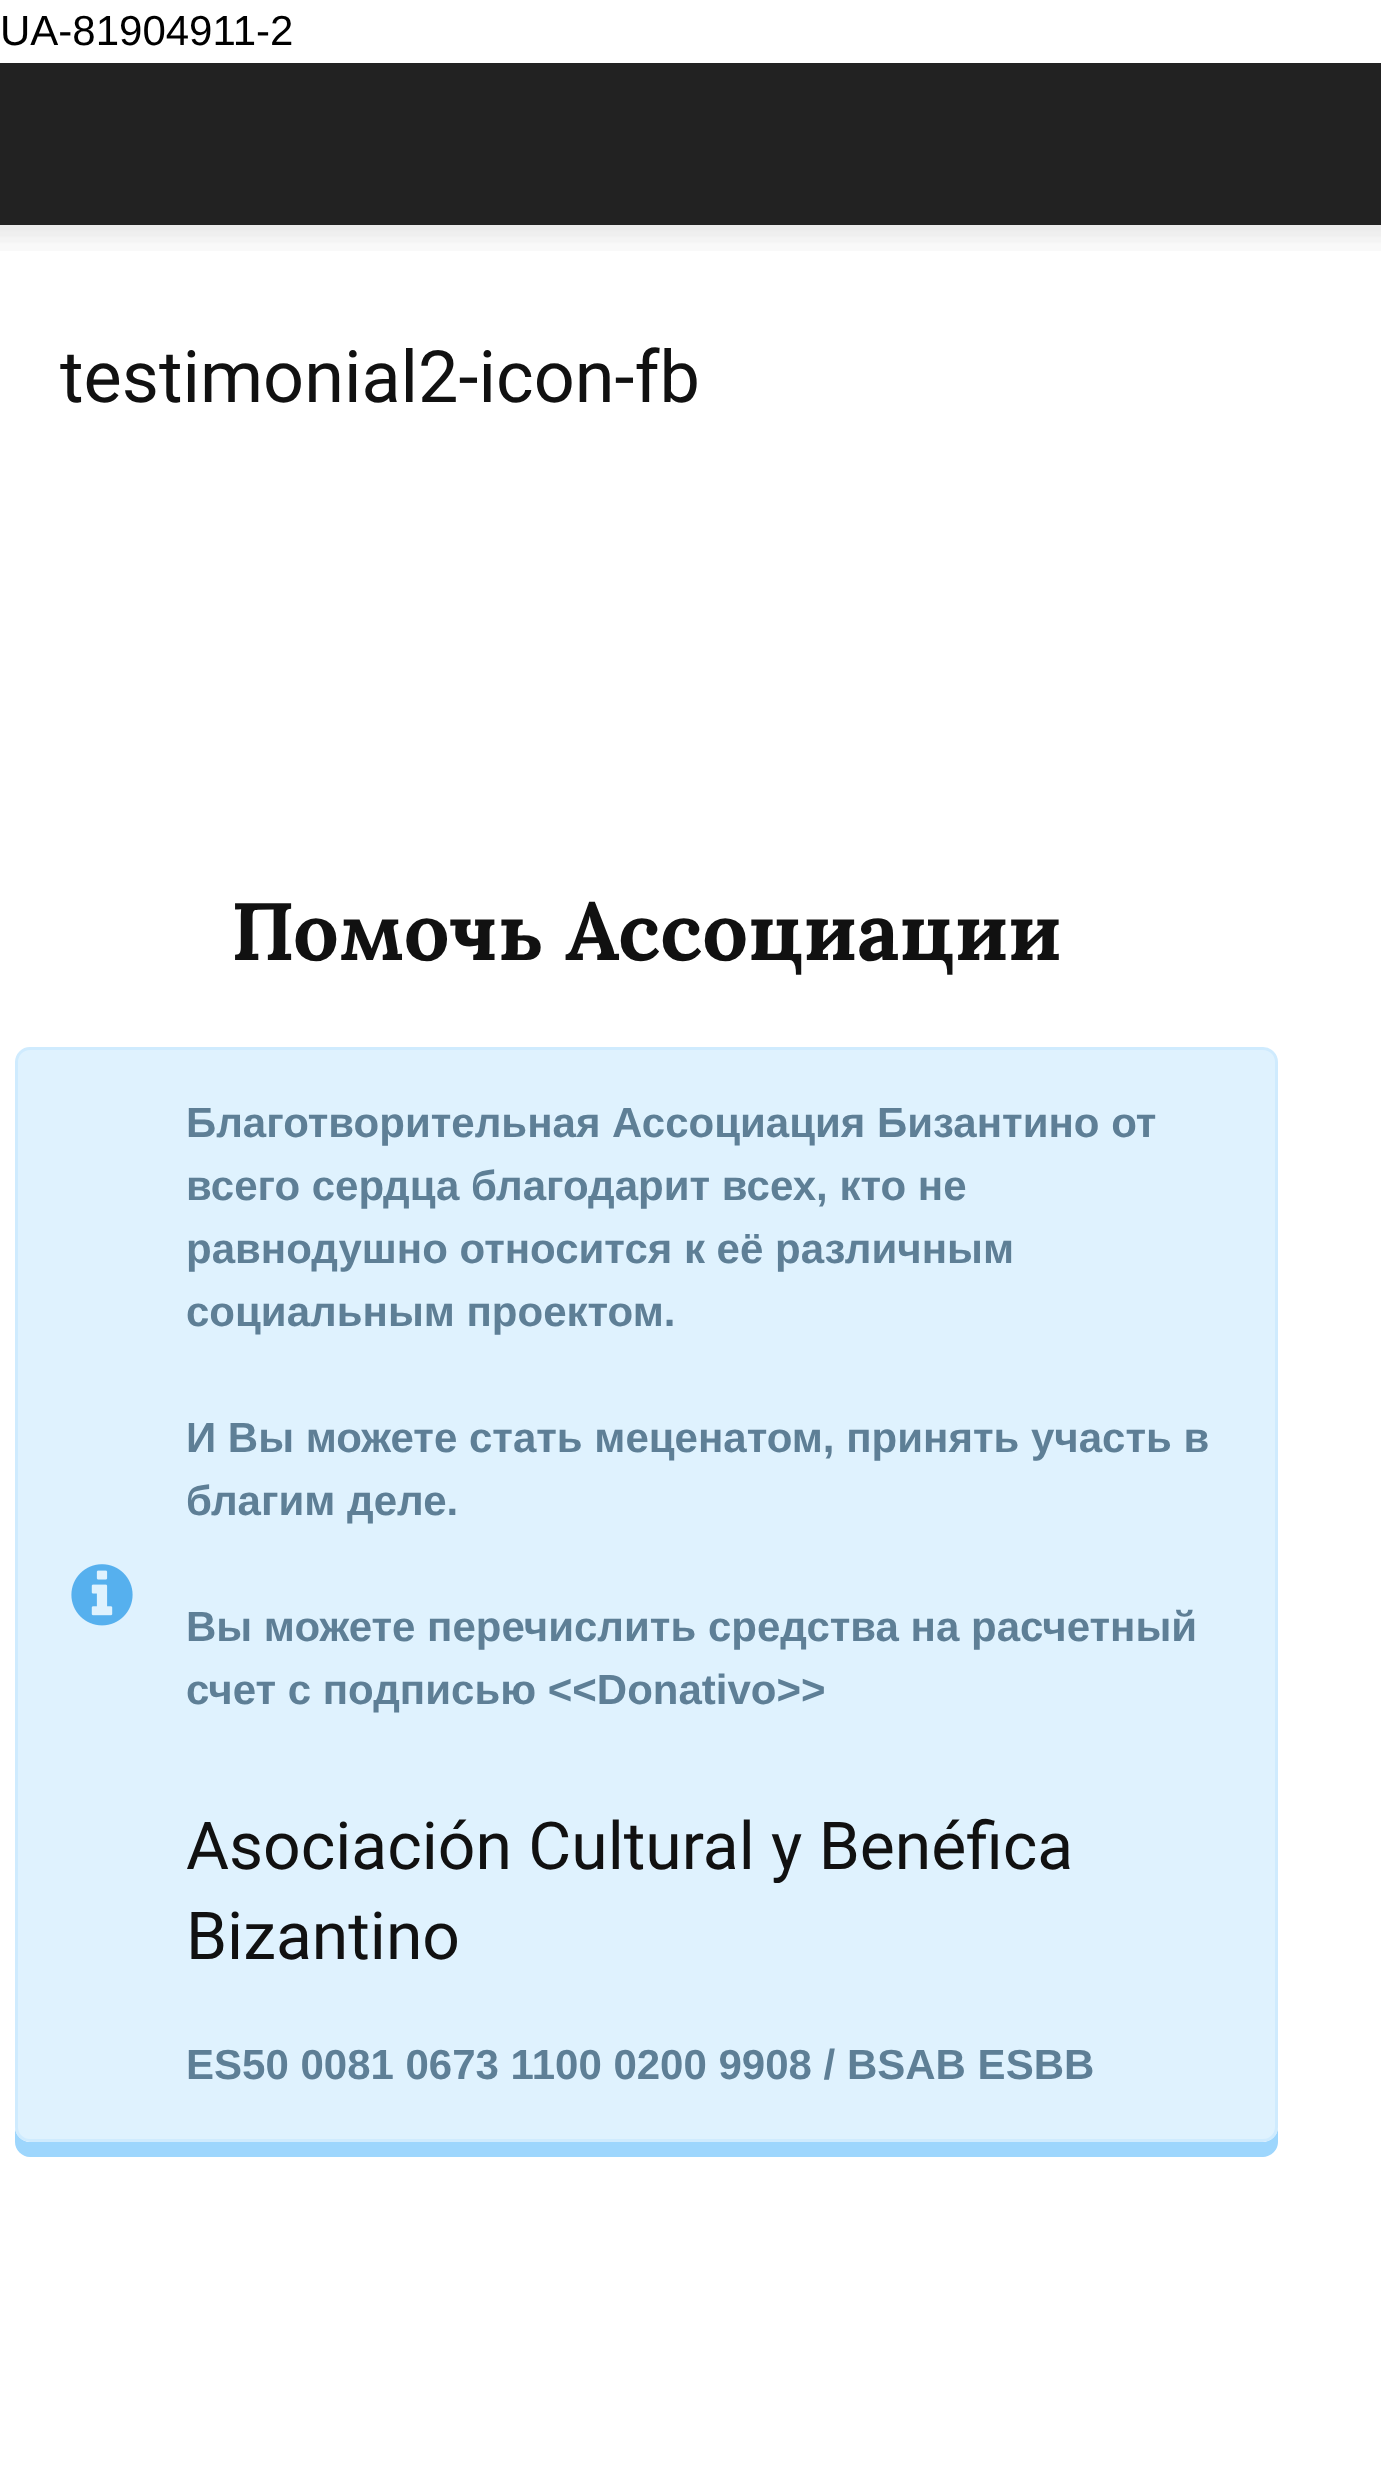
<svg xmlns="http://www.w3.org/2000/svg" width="1381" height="2489">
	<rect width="100%" height="100%" fill="#FFFFFF" />
	<text x="0" y="45" font-family="Liberation Sans" font-size="42" fill="#000000">UA-81904911-2</text>
	<rect x="0" y="63" width="1381" height="162" fill="#222222" />
	<image x="0" y="225" width="1381" height="26" href="assets/img1.png" />
	<text x="60" y="402" font-family="Roboto" font-size="72" fill="#111111">testimonial2-icon-fb</text>
	<text x="231" y="960" font-family="Lora" font-size="81" font-weight="700" fill="#111111">Помочь Ассоциации</text>
	<path d="M15 2127V2142C15 2150 22 2157 30 2157H1263C1271 2157 1278 2150 1278 2142V2127C1278 2135 1271 2142 1263 2142H30C22 2142 15 2135 15 2127Z" fill="#9DD6FD" />
	<rect x="16.5" y="1048.5" width="1260" height="1092" rx="13.5" fill="#DFF2FE" stroke="#CFEBFE" stroke-width="3" />
	<g font-family="Liberation Sans" font-size="42" font-weight="700" fill="#5E7F96">
		<text x="186" y="1137">Благотворительная Ассоциация Бизантино от</text>
		<text x="186" y="1200">всего сердца благодарит всех, кто не</text>
		<text x="186" y="1263">равнодушно относится к её различным</text>
		<text x="186" y="1326">социальным проектом.</text>
		<text x="186" y="1452">И Вы можете стать меценатом, принять участь в</text>
		<text x="186" y="1515">благим деле.</text>
	</g>
	<image x="71" y="1564" width="62" height="62" href="assets/img2.png" />
	<g font-family="Liberation Sans" font-size="42" font-weight="700" fill="#5E7F96">
		<text x="186" y="1641">Вы можете перечислить средства на расчетный</text>
		<text x="186" y="1704">счет с подписью &lt;&lt;Donativo&gt;&gt;</text>
	</g>
	<g font-family="Roboto" font-size="66" fill="#111111">
		<text x="186" y="1869">Asociación Cultural y Benéfica</text>
		<text x="186" y="1959">Bizantino</text>
	</g>
	<text x="186" y="2079" font-family="Liberation Sans" font-size="42" font-weight="700" fill="#5E7F96">ES50 0081 0673 1100 0200 9908 / BSAB ESBB</text>
</svg>
